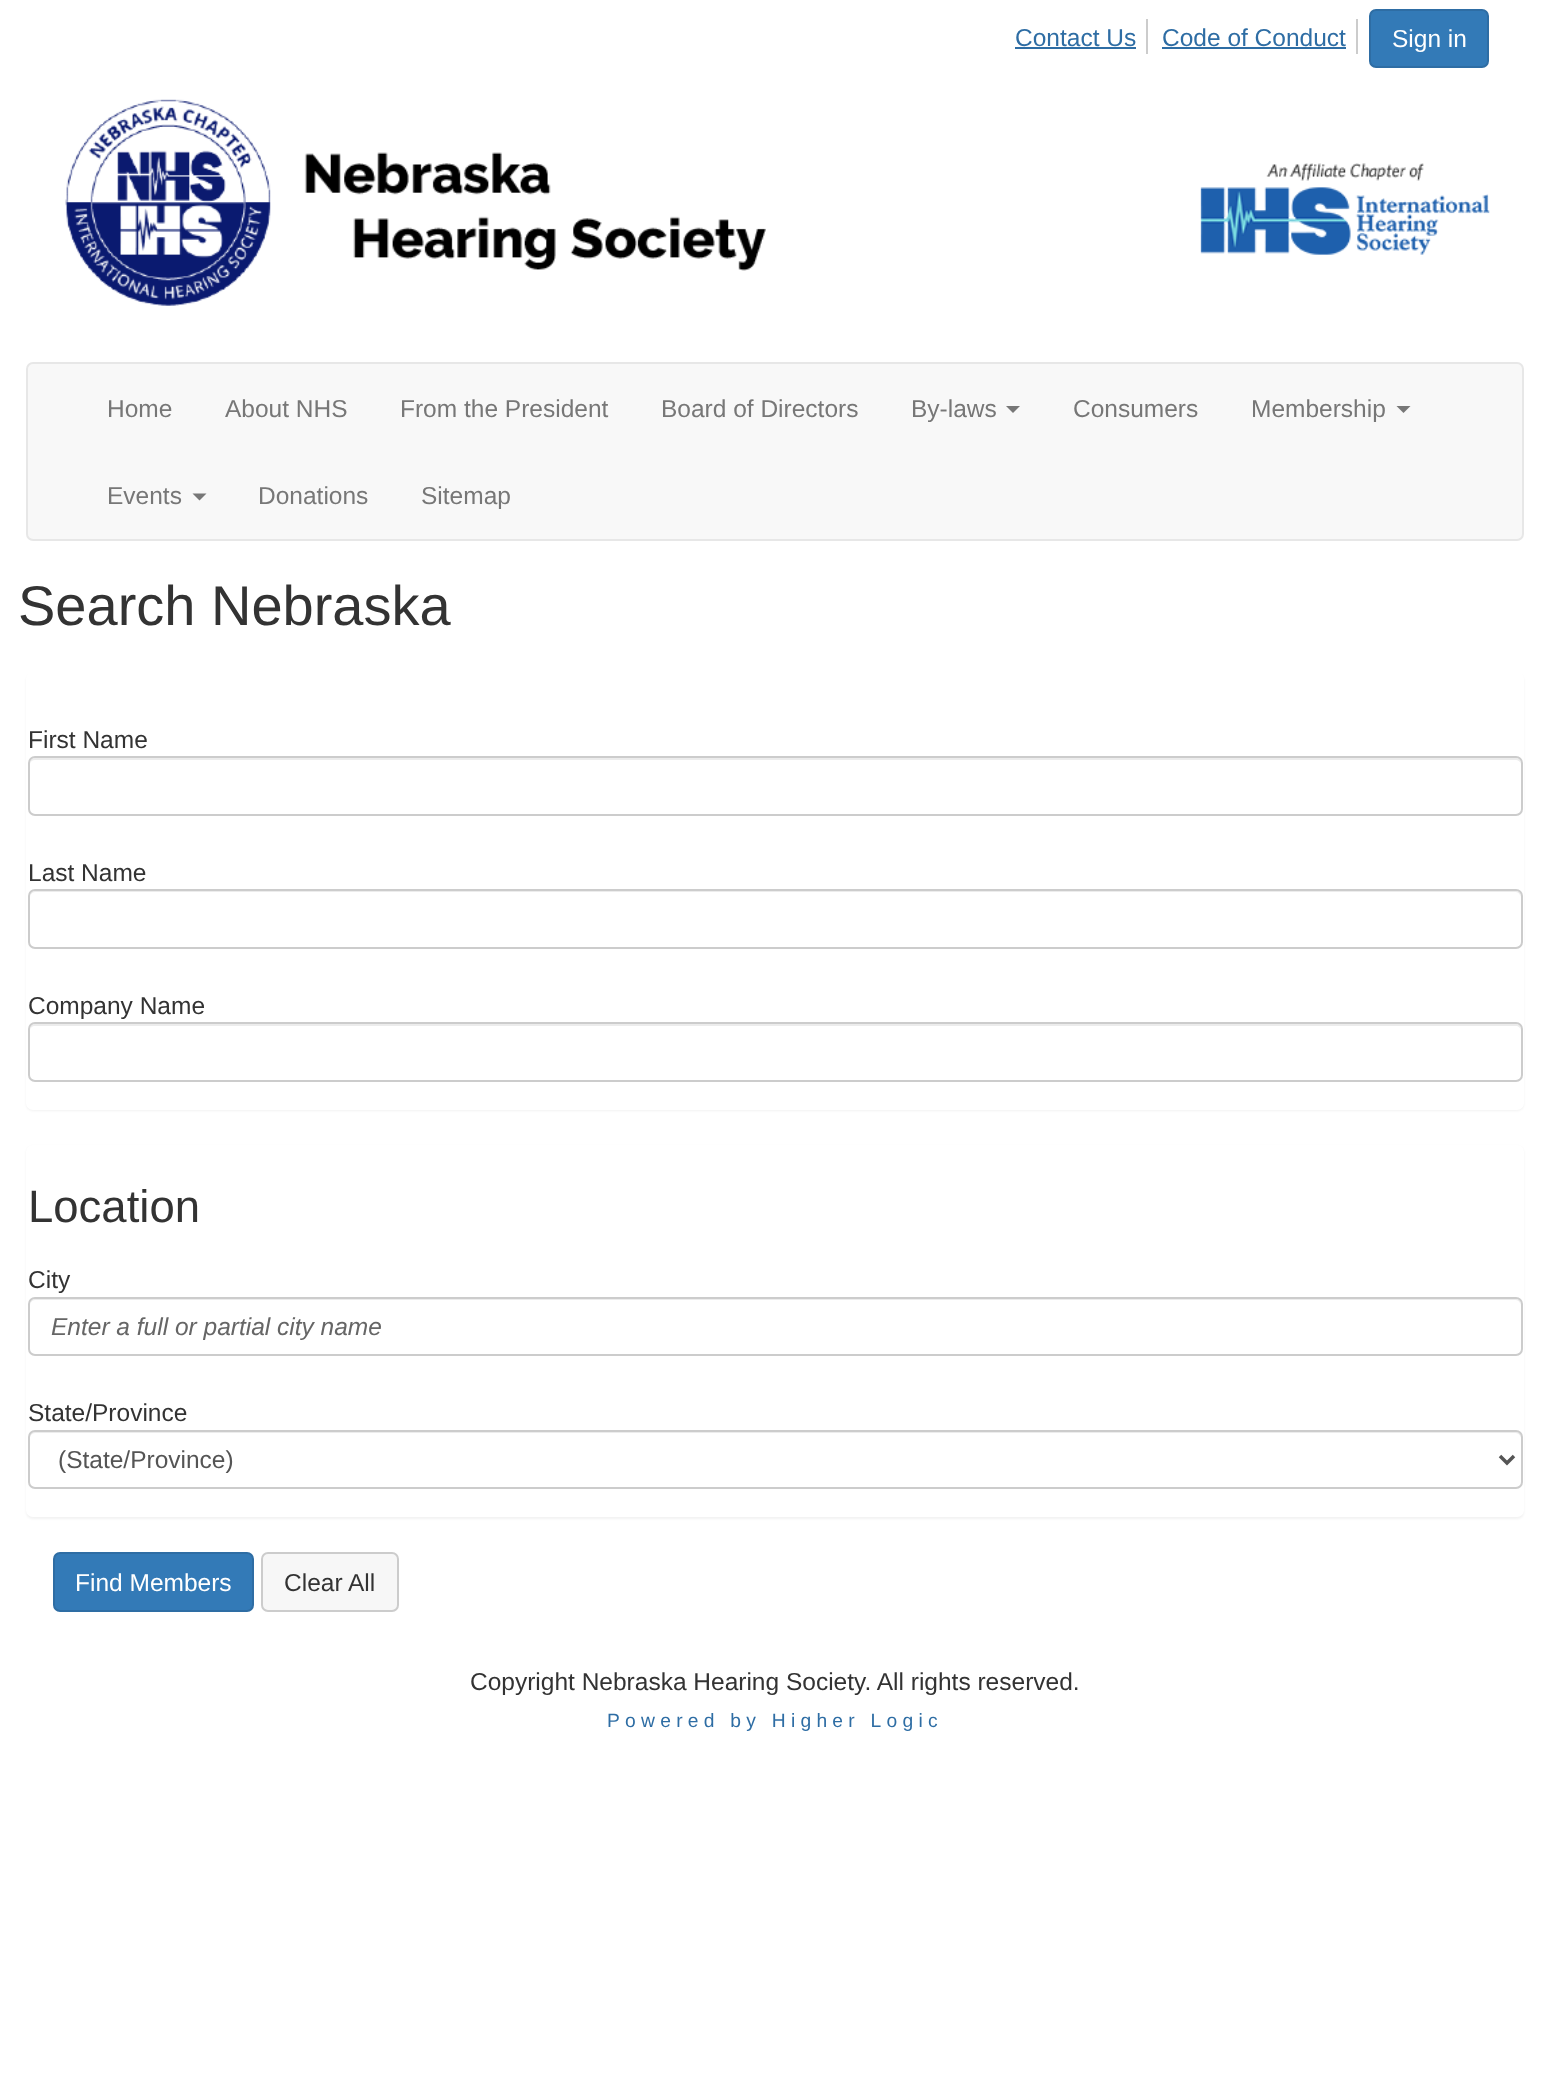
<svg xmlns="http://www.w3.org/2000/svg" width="1549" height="2085">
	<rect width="100%" height="100%" fill="#FFFFFF" />
	<rect x="1146" y="19" width="2" height="35" fill="#CCCCCC" />
	<text x="1015" y="46" font-family="Liberation Sans" font-size="24.5" fill="#2E6DA4">Contact Us</text>
	<rect x="1015" y="47" width="121" height="2" fill="#2E6DA4" />
	<rect x="1356" y="19" width="2" height="35" fill="#CCCCCC" />
	<text x="1162" y="46" font-family="Liberation Sans" font-size="24.5" fill="#2E6DA4">Code of Conduct</text>
	<rect x="1162" y="47" width="184" height="2" fill="#2E6DA4" />
	<rect x="1370" y="10" width="118" height="57" rx="6" fill="#337AB7" stroke="#2E6DA4" stroke-width="2" />
	<text x="1392" y="47" font-family="Liberation Sans" font-size="24.5" fill="#FFFFFF">Sign in</text>
	<image x="65" y="99" width="1425" height="207" href="assets/img1.png" />
	<rect x="27" y="363" width="1496" height="177" rx="6" fill="#F8F8F8" stroke="#E7E7E7" stroke-width="2" />
	<g font-family="Liberation Sans" font-size="24.5" fill="#777777">
		<text x="107" y="417">Home</text>
		<text x="225" y="417">About NHS</text>
		<text x="400" y="417">From the President</text>
		<text x="661" y="417">Board of Directors</text>
		<text x="911" y="417">By-laws</text>
	</g>
	<path d="M1006 406H1020L1013 413Z" fill="#777777" />
	<g font-family="Liberation Sans" font-size="24.5" fill="#777777">
		<text x="1073" y="417">Consumers</text>
		<text x="1251" y="417">Membership</text>
	</g>
	<path d="M1396.5 406H1410.5L1403.5 413Z" fill="#777777" />
	<text x="107" y="504" font-family="Liberation Sans" font-size="24.5" fill="#777777">Events</text>
	<path d="M192.5 493.5H206.5L199.5 500.5Z" fill="#777777" />
	<g font-family="Liberation Sans" font-size="24.5" fill="#777777">
		<text x="258" y="504">Donations</text>
		<text x="421" y="504">Sitemap</text>
	</g>
	<text x="18" y="625" font-family="Liberation Sans" font-size="56" fill="#333333">Search Nebraska</text>
	<rect x="26" y="674" width="1498" height="437" rx="7" fill="#000000" fill-opacity="0.05" filter="blur(1px)" />
	<rect x="26" y="672" width="1498" height="438" rx="7" fill="#FFFFFF" />
	<text x="28" y="748" font-family="Liberation Sans" font-size="24.5" fill="#333333">First Name</text>
	<path d="M35 760H1516C1518 760 1521 762 1521 765C1521 762 1520 758 1516 758H35C31 758 30 762 30 765C30 762 32 760 35 760Z" fill="#ECECEC" />
	<rect x="29" y="757" width="1493" height="58" rx="6" fill="none" stroke="#CCCCCC" stroke-width="2" />
	<text x="28" y="881" font-family="Liberation Sans" font-size="24.5" fill="#333333">Last Name</text>
	<path d="M35 892H1516C1518 892 1521 895 1521 898C1521 895 1520 891 1516 891H35C31 891 30 895 30 898C30 895 32 892 35 892Z" fill="#ECECEC" />
	<rect x="29" y="890" width="1493" height="58" rx="6" fill="none" stroke="#CCCCCC" stroke-width="2" />
	<text x="28" y="1014" font-family="Liberation Sans" font-size="24.5" fill="#333333">Company Name</text>
	<path d="M35 1026H1516C1518 1026 1521 1028 1521 1031C1521 1028 1520 1024 1516 1024H35C31 1024 30 1028 30 1031C30 1028 32 1026 35 1026Z" fill="#ECECEC" />
	<rect x="29" y="1023" width="1493" height="58" rx="6" fill="none" stroke="#CCCCCC" stroke-width="2" />
	<rect x="26" y="1146" width="1498" height="373" rx="7" fill="#000000" fill-opacity="0.05" filter="blur(1px)" />
	<rect x="26" y="1145" width="1498" height="372" rx="7" fill="#FFFFFF" />
	<text x="28" y="1222" font-family="Liberation Sans" font-size="45.5" fill="#333333">Location</text>
	<text x="28" y="1288" font-family="Liberation Sans" font-size="24.5" fill="#333333">City</text>
	<path d="M35 1300H1516C1518 1300 1521 1303 1521 1306C1521 1303 1520 1299 1516 1299H35C31 1299 30 1303 30 1306C30 1303 32 1300 35 1300Z" fill="#ECECEC" />
	<rect x="29" y="1298" width="1493" height="57" rx="6" fill="none" stroke="#CCCCCC" stroke-width="2" />
	<text x="51" y="1335" font-family="Liberation Sans" font-size="24.5" font-style="italic" fill="#666666">Enter a full or partial city name</text>
	<text x="28" y="1421" font-family="Liberation Sans" font-size="24.5" fill="#333333">State/Province</text>
	<path d="M35 1433H1516C1518 1433 1521 1436 1521 1438V1437C1521 1434 1519 1432 1516 1432H35C32 1432 30 1434 30 1437V1438C30 1436 32 1433 35 1433Z" fill="#ECECEC" />
	<rect x="29" y="1431" width="1493" height="57" rx="6" fill="none" stroke="#CCCCCC" stroke-width="2" />
	<path d="M1500 1456L1507 1463L1514 1456" fill="none" stroke="#555555" stroke-width="3.5" />
	<text x="58" y="1468" font-family="Liberation Sans" font-size="24.5" fill="#555555">(State/Province)</text>
	<rect x="54" y="1553" width="199" height="58" rx="6" fill="#337AB7" stroke="#2E6DA4" stroke-width="2" />
	<text x="75" y="1591" font-family="Liberation Sans" font-size="24.5" fill="#FFFFFF">Find Members</text>
	<rect x="262" y="1553" width="136" height="58" rx="6" fill="#F7F7F7" stroke="#CCCCCC" stroke-width="2" />
	<g font-family="Liberation Sans" font-size="24.5" fill="#333333">
		<text x="284" y="1591">Clear All</text>
		<text x="470" y="1690">Copyright Nebraska Hearing Society. All rights reserved.</text>
	</g>
	<text x="607" y="1727" font-family="Liberation Sans" font-size="19.25" letter-spacing="5.25" fill="#2E6DA4">Powered by Higher Logic</text>
</svg>
